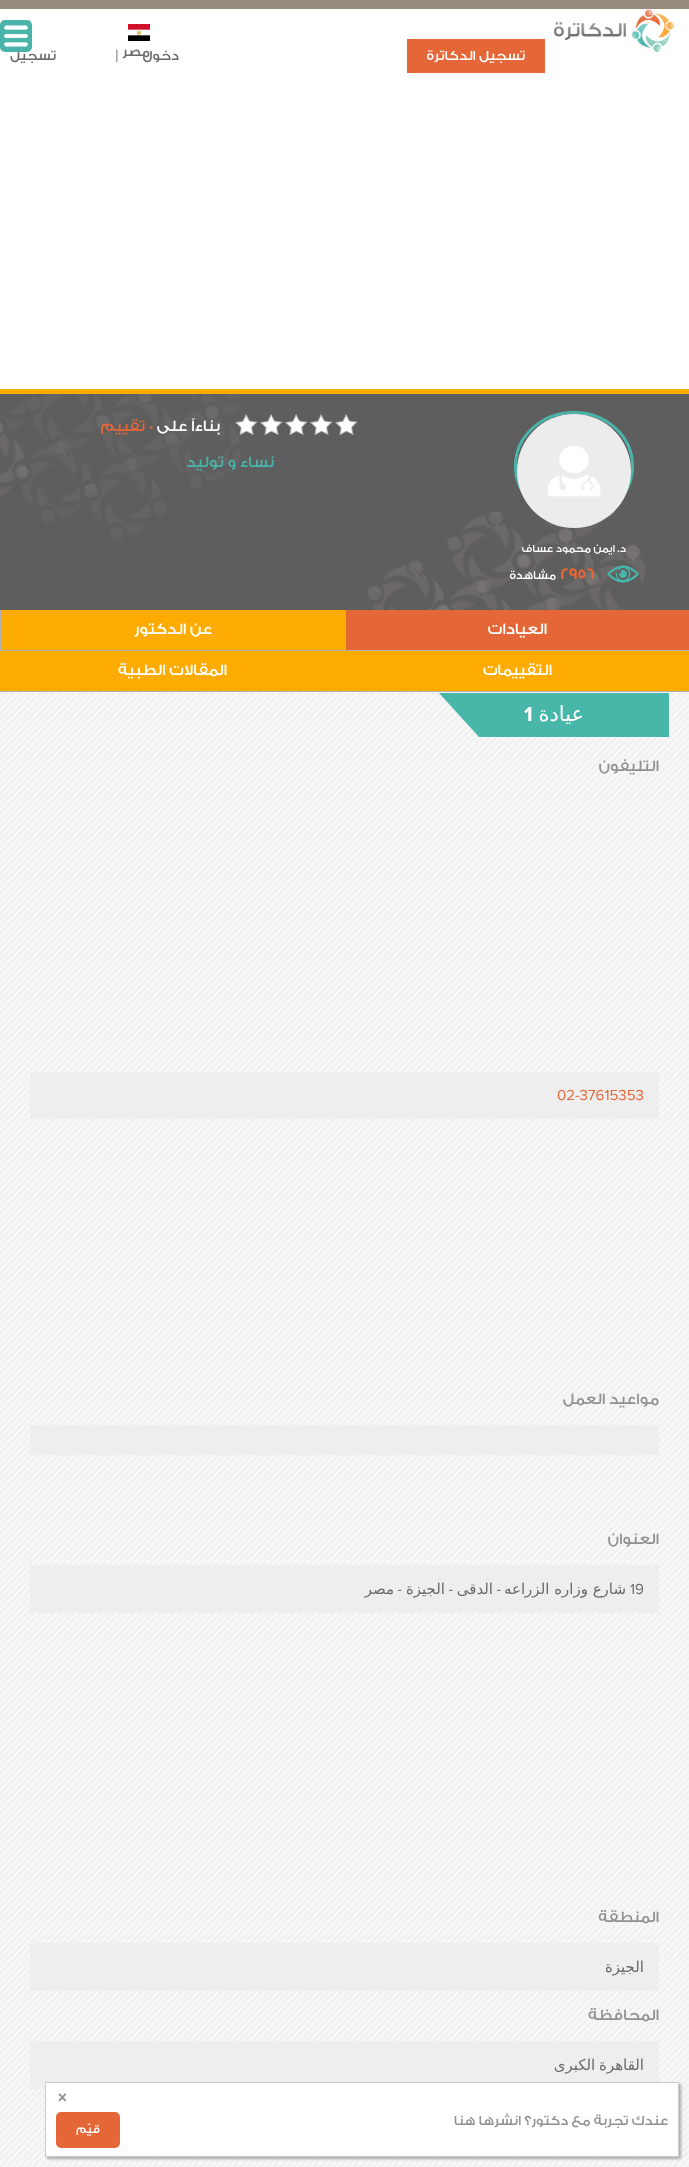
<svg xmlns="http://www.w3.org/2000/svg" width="689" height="2167">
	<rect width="100%" height="100%" fill="#FFFFFF" />
	<rect x="0" y="0" width="689" height="9" fill="#968A7B" />
	<image x="554" y="9" width="121" height="43" href="assets/img1.png" />
	<rect x="407" y="39" width="138" height="34" fill="#E56737" />
	<text x="525" y="60" font-family="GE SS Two" font-size="14" font-weight="500" direction="rtl" fill="#FFFFFF">تسجيل الدكاترة</text>
	<text x="179" y="60" font-family="GE SS Two" font-size="14" font-weight="500" direction="rtl" fill="#6A6A6A">دخول</text>
	<text x="116" y="60" font-family="GE SS Two" font-size="14" font-weight="500" fill="#6A6A6A">|</text>
	<text x="56" y="60" font-family="GE SS Two" font-size="14" font-weight="500" direction="rtl" fill="#6A6A6A">تسجيل</text>
	<rect x="0" y="20" width="32" height="32" rx="5" fill="#49B4AA" />
	<image x="4" y="25" width="24" height="22" href="assets/img2.png" />
	<image x="128" y="24" width="22" height="17" href="assets/img3.png" />
	<text x="150" y="56" font-family="GE SS Two" font-size="14" font-weight="500" direction="rtl" fill="#6A6A6A">مصر</text>
	<image x="0" y="394" width="689" height="216" href="assets/img4.png" />
	<rect x="0" y="389" width="689" height="5" fill="#FEAC02" />
	<image x="235" y="414" width="123" height="21" href="assets/img5.png" />
	<text x="220" y="431" font-family="GE SS Two" font-size="16" font-weight="500" direction="rtl" fill="#FFFFFF">بناءاً على</text>
	<text x="149" y="431" font-family="GE SS Two" font-size="16" font-weight="500" fill="#E56737">0</text>
	<text x="145" y="431" font-family="GE SS Two" font-size="16" font-weight="500" direction="rtl" fill="#E56737">تقييم</text>
	<text x="274" y="467" font-family="GE SS Two" font-size="16" font-weight="500" direction="rtl" fill="#4AB4AA">نساء و توليد</text>
	<path d="M574 412.5C606.5 412.5 632.5 436.5 632.5 466C632.5 495.5 606.5 519.5 574 519.5C541.5 519.5 515.5 495.5 515.5 466C515.5 436.5 541.5 412.5 574 412.5Z" fill="none" stroke="#4AB4AA" stroke-width="3" />
	<image x="517" y="414" width="114" height="114" href="assets/img6.png" />
	<text x="626" y="552" font-family="GE SS Two" font-size="11" font-weight="500" direction="rtl" fill="#FFFFFF">د. ايمن محمود عساف</text>
	<image x="607" y="565" width="32" height="18" href="assets/img7.png" />
	<text x="560" y="579" font-family="GE SS Two" font-size="16" font-weight="700" fill="#E56737">2956</text>
	<text x="556" y="579" font-family="GE SS Two" font-size="12" font-weight="500" direction="rtl" fill="#FFFFFF">مشاهدة</text>
	<rect x="0" y="610" width="689" height="81" fill="#FEAC02" />
	<rect x="346" y="610" width="343" height="40" fill="#E56737" />
	<rect x="0" y="650" width="689" height="1" fill="#B0B0B0" />
	<rect x="345" y="610" width="1" height="41" fill="#B0B0B0" />
	<text x="547" y="634" font-family="GE SS Two" font-size="16" font-weight="500" direction="rtl" fill="#FFFFFF">العيادات</text>
	<rect x="0" y="610" width="1" height="41" fill="#B0B0B0" />
	<text x="212" y="634" font-family="GE SS Two" font-size="16" font-weight="500" direction="rtl" fill="#FFFFFF">عن الدكتور</text>
	<rect x="0" y="691" width="689" height="1" fill="#B0B0B0" />
	<rect x="345" y="651" width="1" height="41" fill="#B0B0B0" />
	<g font-family="GE SS Two" font-size="16" font-weight="500" direction="rtl" fill="#FFFFFF">
		<text x="552" y="675">التقييمات</text>
		<text x="227" y="675">المقالات الطبية</text>
	</g>
	<image x="0" y="692" width="689" height="1475" href="assets/img8.png" />
	<image x="439" y="693" width="230" height="44" href="assets/img9.png" />
	<text x="584" y="721" font-family="DejaVu Sans" font-size="21" direction="rtl" fill="#FFFFFF">عيادة</text>
	<text x="524" y="721" font-family="Proxima Nova" font-size="21" font-weight="700" fill="#FFFFFF">1</text>
	<text x="659" y="771" font-family="GE SS Two" font-size="16" font-weight="500" direction="rtl" fill="#919191">التليفون</text>
	<rect x="30" y="1072" width="629" height="47" fill="#EEEEEE" />
	<text x="557" y="1100" font-family="Proxima Nova" font-size="15" fill="#E56737">02-37615353</text>
	<text x="659" y="1404" font-family="GE SS Two" font-size="16" font-weight="500" direction="rtl" fill="#919191">مواعيد العمل</text>
	<rect x="30" y="1425" width="629" height="30" fill="#EEEEEE" />
	<text x="659" y="1544" font-family="GE SS Two" font-size="16" font-weight="500" direction="rtl" fill="#919191">العنوان</text>
	<rect x="30" y="1565" width="629" height="48" fill="#EEEEEE" />
	<text x="630" y="1594" font-family="Proxima Nova" font-size="15" fill="#6A6A6A">19</text>
	<text x="626" y="1594" font-family="DejaVu Sans" font-size="15" direction="rtl" fill="#6A6A6A">شارع وزاره الزراعه</text>
	<text x="501" y="1594" font-family="Proxima Nova" font-size="15" direction="rtl" fill="#6A6A6A">-</text>
	<text x="493" y="1594" font-family="DejaVu Sans" font-size="15" direction="rtl" fill="#6A6A6A">الدقى</text>
	<text x="453" y="1594" font-family="Proxima Nova" font-size="15" direction="rtl" fill="#6A6A6A">-</text>
	<text x="445" y="1594" font-family="DejaVu Sans" font-size="15" direction="rtl" fill="#6A6A6A">الجيزة</text>
	<text x="402" y="1594" font-family="Proxima Nova" font-size="15" direction="rtl" fill="#6A6A6A">-</text>
	<text x="394" y="1594" font-family="DejaVu Sans" font-size="15" direction="rtl" fill="#6A6A6A">مصر</text>
	<text x="659" y="1922" font-family="GE SS Two" font-size="16" font-weight="500" direction="rtl" fill="#919191">المنطقة</text>
	<rect x="30" y="1943" width="629" height="48" fill="#EEEEEE" />
	<text x="644" y="1972" font-family="DejaVu Sans" font-size="15" direction="rtl" fill="#6A6A6A">الجيزة</text>
	<text x="659" y="2020" font-family="GE SS Two" font-size="16" font-weight="500" direction="rtl" fill="#919191">المحافظة</text>
	<rect x="30" y="2041" width="629" height="48" fill="#EEEEEE" />
	<text x="644" y="2070" word-spacing="-1" font-family="DejaVu Sans" font-size="15" direction="rtl" fill="#6A6A6A">القاهرة الكبرى</text>
	<rect x="47" y="2084" width="634" height="75" fill="#000000" fill-opacity="0.3" filter="blur(1.5px)" />
	<rect x="45.5" y="2082.5" width="633" height="74" fill="#FFFFFF" stroke="#CCCCCC" />
	<g font-family="GE SS Two" font-size="14" font-weight="500" direction="rtl" fill="#919191">
		<text x="668" y="2125">عندك تجربة مع دكتور؟</text>
		<text x="521" y="2125">انشرها هنا</text>
	</g>
	<text x="57" y="2103" font-family="GE SS Two" font-size="20" font-weight="500" fill="#919191">×</text>
	<rect x="56" y="2112" width="64" height="36" rx="5" fill="#E56737" />
	<text x="100" y="2133" font-family="GE SS Two" font-size="12" font-weight="500" direction="rtl" fill="#FFFFFF">قيّم</text>
</svg>
